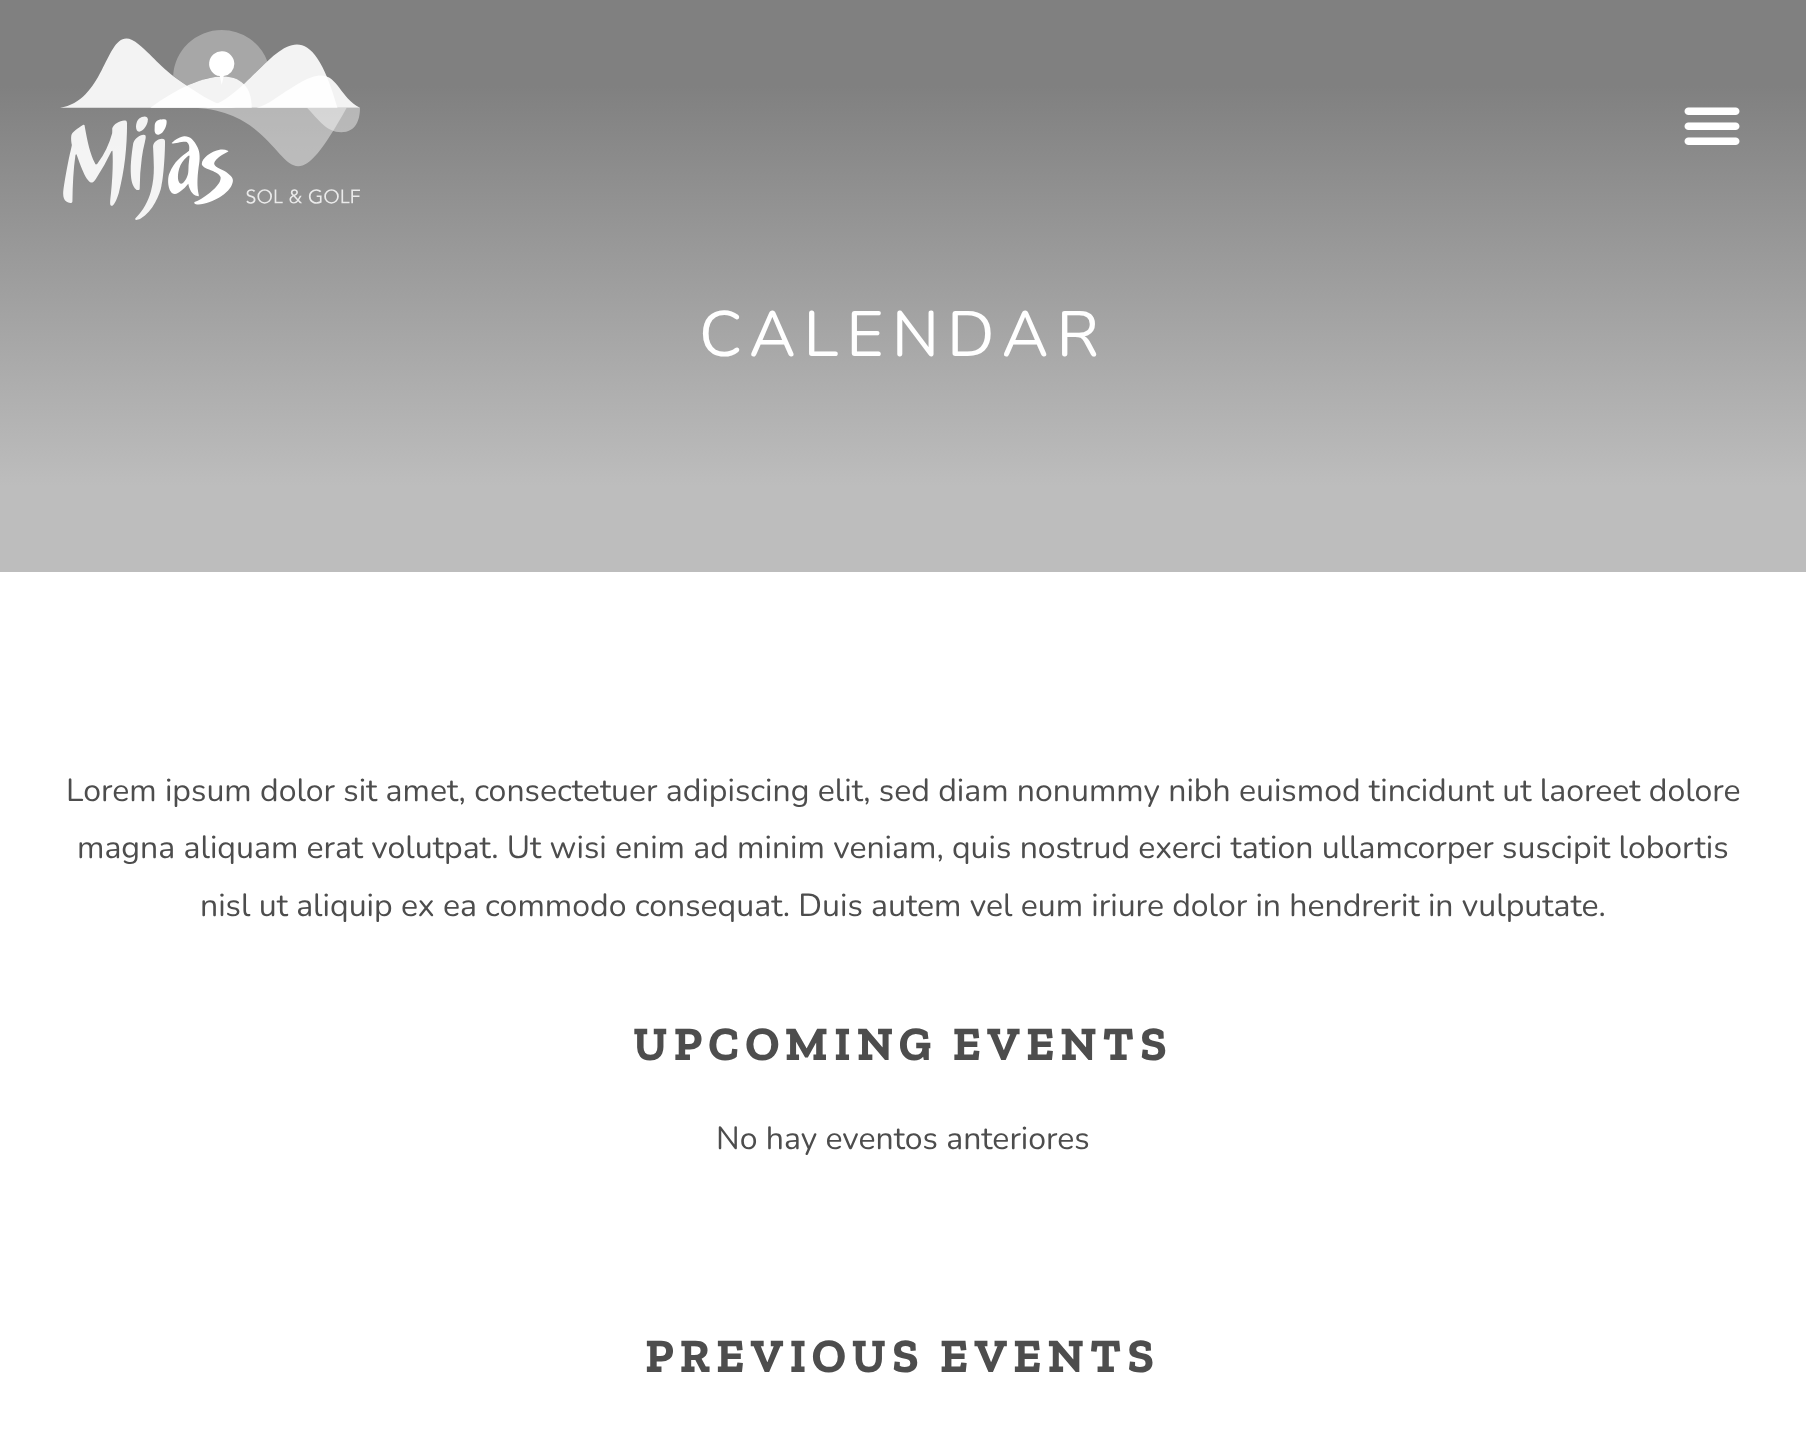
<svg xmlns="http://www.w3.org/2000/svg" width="1806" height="1432">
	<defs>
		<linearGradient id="g1" gradientUnits="userSpaceOnUse" x1="903" y1="0" x2="903" y2="572"><stop offset="0.15" stop-color="#808080" /><stop offset="0.85" stop-color="#BDBDBD" /></linearGradient>
	</defs>
	<rect width="100%" height="100%" fill="#FFFFFF" />
	<rect x="0" y="0" width="1806" height="572" fill="url(#g1)" />
	<image x="60" y="30" width="300" height="190" href="assets/img1.png" />
	<image x="1684" y="107" width="56" height="38" href="assets/img2.png" />
	<text x="699" y="356" font-family="Nunito" font-size="64" letter-spacing="8" fill="#FFFFFF">CALENDAR</text>
	<g font-family="Nunito" font-size="32" fill="#4D4D4D">
		<text x="66" y="801">Lorem ipsum dolor sit amet, consectetuer adipiscing elit, sed diam nonummy nibh euismod tincidunt ut laoreet dolore</text>
		<text x="77" y="858">magna aliquam erat volutpat. Ut wisi enim ad minim veniam, quis nostrud exerci tation ullamcorper suscipit lobortis</text>
		<text x="200" y="916">nisl ut aliquip ex ea commodo consequat. Duis autem vel eum iriure dolor in hendrerit in vulputate.</text>
	</g>
	<text x="633" y="1060" font-family="Zilla Slab" font-size="48" font-weight="700" letter-spacing="6" fill="#4D4D4D">UPCOMING EVENTS</text>
	<text x="716" y="1149" font-family="Nunito" font-size="32" fill="#4D4D4D">No hay eventos anteriores</text>
	<text x="645" y="1372" font-family="Zilla Slab" font-size="48" font-weight="700" letter-spacing="6" fill="#4D4D4D">PREVIOUS EVENTS</text>
</svg>
